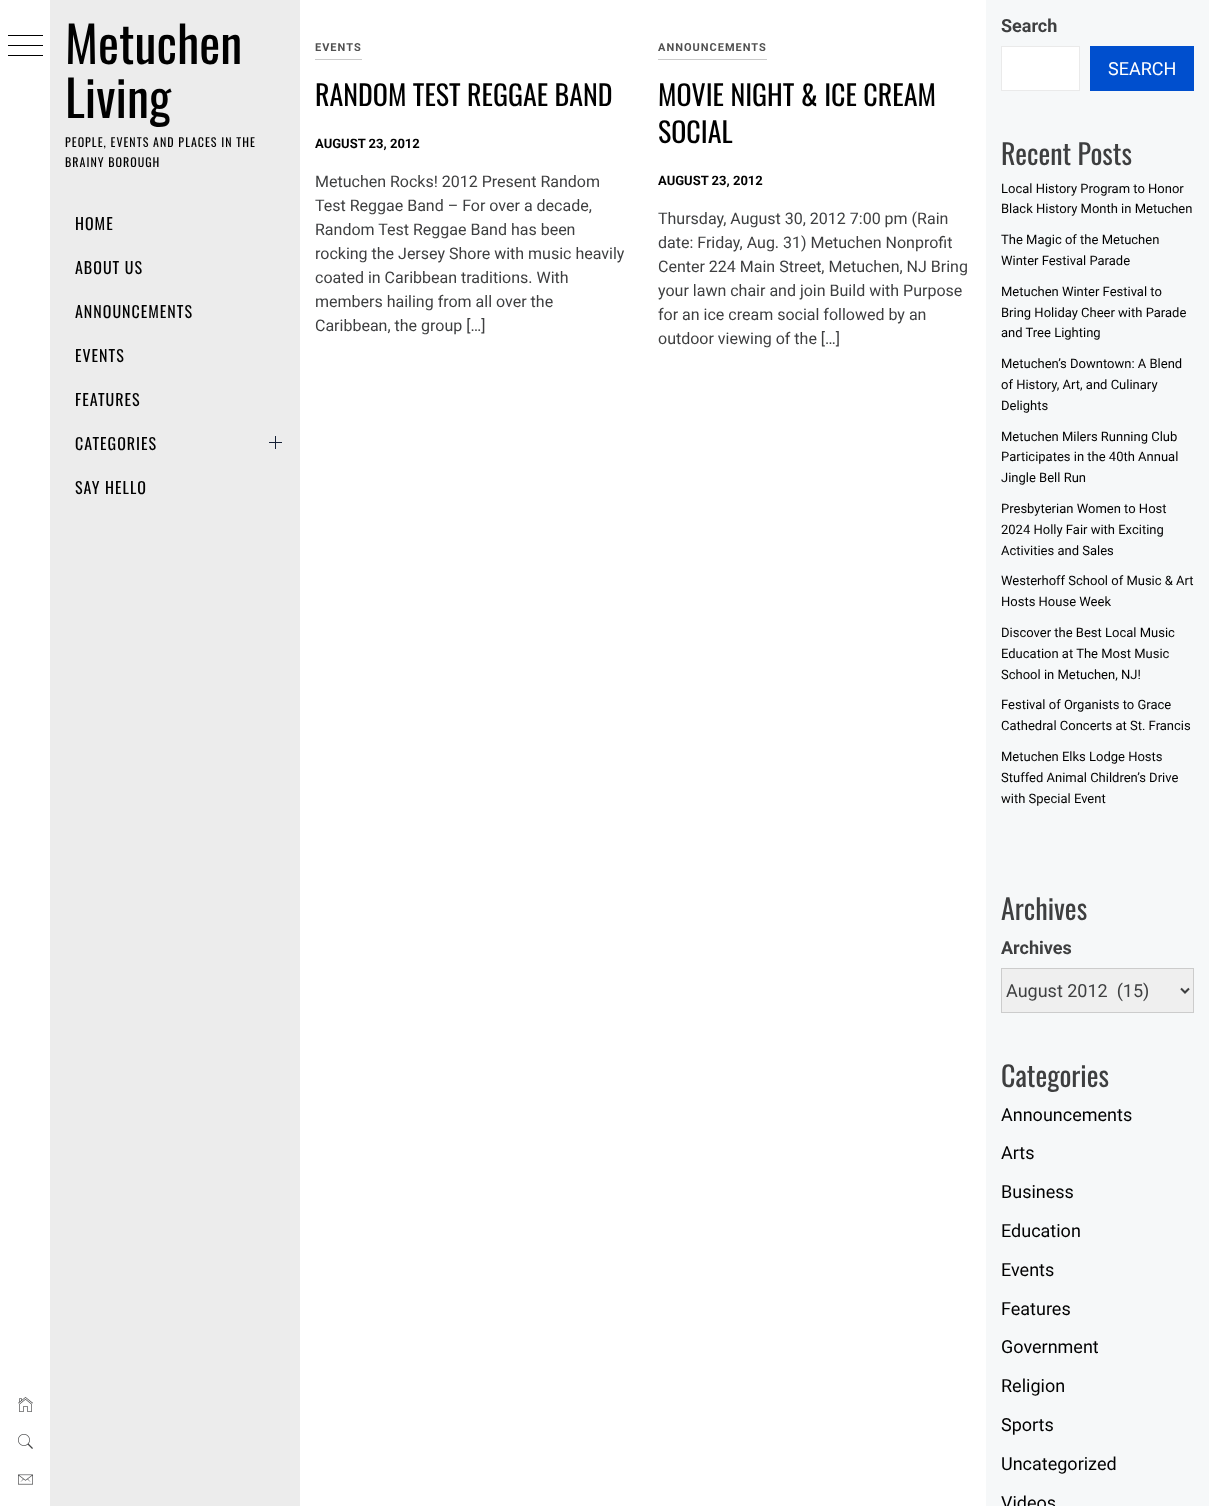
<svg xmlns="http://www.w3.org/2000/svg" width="1224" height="1506">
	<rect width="100%" height="100%" fill="#FFFFFF" />
	<rect x="8" y="35" width="35" height="1" fill="#000000" />
	<rect x="8" y="45" width="35" height="1" fill="#000000" />
	<rect x="8" y="55" width="35" height="1" fill="#000000" />
	<image x="18" y="1397" width="15" height="15" href="assets/img1.png" />
	<image x="18" y="1434" width="15" height="15" href="assets/img2.png" />
	<image x="18" y="1474" width="15" height="11" href="assets/img3.png" />
	<rect x="50" y="0" width="250" height="1506" fill="#ECECEC" />
	<g font-family="Oswald" font-size="50" fill="#000000">
		<text x="65" y="64">Metuchen</text>
		<text x="65" y="118">Living</text>
	</g>
	<g font-family="Oswald" font-size="12" letter-spacing="1" fill="#000000">
		<text x="65" y="147">PEOPLE, EVENTS AND PLACES IN THE</text>
		<text x="65" y="167">BRAINY BOROUGH</text>
	</g>
	<g font-family="Oswald" font-size="16" letter-spacing="1" fill="#000000">
		<text x="75" y="230">HOME</text>
		<text x="75" y="274">ABOUT US</text>
		<text x="75" y="318">ANNOUNCEMENTS</text>
		<text x="75" y="362">EVENTS</text>
		<text x="75" y="406">FEATURES</text>
		<text x="75" y="450">CATEGORIES</text>
	</g>
	<rect x="269" y="442" width="13" height="1" fill="#152035" />
	<rect x="275" y="436" width="1" height="13" fill="#152035" />
	<text x="75" y="494" font-family="Oswald" font-size="16" letter-spacing="1" fill="#000000">SAY HELLO</text>
	<rect x="315" y="59" width="47" height="1" fill="#CACACA" />
	<text x="315" y="51" font-family="Roboto" font-size="11" font-weight="700" letter-spacing="1" fill="#505050">EVENTS</text>
	<text x="315" y="106" font-family="Oswald" font-size="28" fill="#000000">RANDOM TEST REGGAE BAND</text>
	<text x="315" y="148" font-family="Roboto" font-size="13" font-weight="700" fill="#000000">AUGUST 23, 2012</text>
	<g font-family="Roboto" font-size="16" fill="#3E3F40">
		<text x="315" y="187">Metuchen Rocks! 2012 Present Random</text>
		<text x="315" y="211">Test Reggae Band – For over a decade,</text>
		<text x="315" y="235">Random Test Reggae Band has been</text>
		<text x="315" y="259">rocking the Jersey Shore with music heavily</text>
		<text x="315" y="283">coated in Caribbean traditions. With</text>
		<text x="315" y="307">members hailing from all over the</text>
		<text x="315" y="331">Caribbean, the group […]</text>
	</g>
	<rect x="658" y="59" width="109" height="1" fill="#CACACA" />
	<text x="658" y="51" font-family="Roboto" font-size="11" font-weight="700" letter-spacing="1" fill="#505050">ANNOUNCEMENTS</text>
	<g font-family="Oswald" font-size="28" fill="#000000">
		<text x="658" y="106">MOVIE NIGHT &amp; ICE CREAM</text>
		<text x="658" y="143">SOCIAL</text>
	</g>
	<text x="658" y="185" font-family="Roboto" font-size="13" font-weight="700" fill="#000000">AUGUST 23, 2012</text>
	<g font-family="Roboto" font-size="16" fill="#3E3F40">
		<text x="658" y="224">Thursday, August 30, 2012 7:00 pm (Rain</text>
		<text x="658" y="248">date: Friday, Aug. 31) Metuchen Nonprofit</text>
		<text x="658" y="272">Center 224 Main Street, Metuchen, NJ Bring</text>
		<text x="658" y="296">your lawn chair and join Build with Purpose</text>
		<text x="658" y="320">for an ice cream social followed by an</text>
		<text x="658" y="344">outdoor viewing of the […]</text>
	</g>
	<rect x="986" y="0" width="223" height="1506" fill="#F6F8F9" />
	<text x="1001" y="32" font-family="Roboto" font-size="18" font-weight="700" fill="#3E3F40">Search</text>
	<rect x="1001.5" y="46.5" width="78" height="44" fill="#FFFFFF" stroke="#EAEAEA" />
	<rect x="1090" y="46" width="104" height="45" fill="#004FCE" />
	<text x="1108" y="75" font-family="Roboto" font-size="18" fill="#FFFFFF">SEARCH</text>
	<text x="1001" y="165" font-family="Oswald" font-size="28" fill="#3E3F40">Recent Posts</text>
	<g font-family="Roboto" font-size="13" fill="#000000">
		<text x="1001" y="193">Local History Program to Honor</text>
		<text x="1001" y="213">Black History Month in Metuchen</text>
		<text x="1001" y="244">The Magic of the Metuchen</text>
		<text x="1001" y="265">Winter Festival Parade</text>
		<text x="1001" y="296">Metuchen Winter Festival to</text>
		<text x="1001" y="317">Bring Holiday Cheer with Parade</text>
		<text x="1001" y="337">and Tree Lighting</text>
		<text x="1001" y="368">Metuchen’s Downtown: A Blend</text>
		<text x="1001" y="389">of History, Art, and Culinary</text>
		<text x="1001" y="410">Delights</text>
		<text x="1001" y="441">Metuchen Milers Running Club</text>
		<text x="1001" y="461">Participates in the 40th Annual</text>
		<text x="1001" y="482">Jingle Bell Run</text>
		<text x="1001" y="513">Presbyterian Women to Host</text>
		<text x="1001" y="534">2024 Holly Fair with Exciting</text>
		<text x="1001" y="555">Activities and Sales</text>
		<text x="1001" y="585">Westerhoff School of Music &amp; Art</text>
		<text x="1001" y="606">Hosts House Week</text>
		<text x="1001" y="637">Discover the Best Local Music</text>
		<text x="1001" y="658">Education at The Most Music</text>
		<text x="1001" y="679">School in Metuchen, NJ!</text>
		<text x="1001" y="709">Festival of Organists to Grace</text>
		<text x="1001" y="730">Cathedral Concerts at St. Francis</text>
		<text x="1001" y="761">Metuchen Elks Lodge Hosts</text>
		<text x="1001" y="782">Stuffed Animal Children’s Drive</text>
		<text x="1001" y="803">with Special Event</text>
	</g>
	<text x="1001" y="920" font-family="Oswald" font-size="28" fill="#3E3F40">Archives</text>
	<text x="1001" y="954" font-family="Roboto" font-size="18" font-weight="700" fill="#3E3F40">Archives</text>
	<rect x="1001.5" y="968.5" width="192" height="44" fill="#EFEFEF" stroke="#CCCCCC" />
	<path d="M1181 988.5L1185 992.5L1189 988.5" fill="none" stroke="#3E3F40" stroke-width="2" />
	<text x="1006" y="997" font-family="Roboto" font-size="18" fill="#3E3F40" xml:space="preserve">August 2012  (15)</text>
	<text x="1001" y="1087" font-family="Oswald" font-size="28" fill="#3E3F40">Categories</text>
	<g font-family="Roboto" font-size="18" fill="#000000">
		<text x="1001" y="1121">Announcements</text>
		<text x="1001" y="1159">Arts</text>
		<text x="1001" y="1198">Business</text>
		<text x="1001" y="1237">Education</text>
		<text x="1001" y="1276">Events</text>
		<text x="1001" y="1315">Features</text>
		<text x="1001" y="1353">Government</text>
		<text x="1001" y="1392">Religion</text>
		<text x="1001" y="1431">Sports</text>
		<text x="1001" y="1470">Uncategorized</text>
		<text x="1001" y="1509">Videos</text>
	</g>
</svg>
